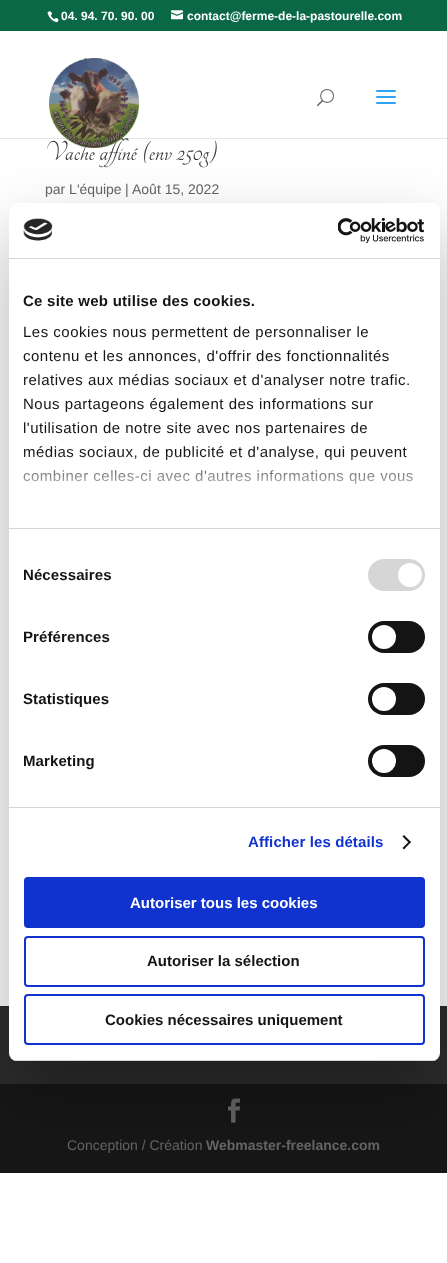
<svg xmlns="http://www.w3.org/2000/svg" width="447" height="1263">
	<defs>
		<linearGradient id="g1" gradientUnits="userSpaceOnUse" x1="218" y1="528" x2="218" y2="453"><stop offset="0" stop-color="#FFFFFF" /><stop offset="0.5" stop-color="#FFFFFF" stop-opacity="0.8" /><stop offset="1" stop-color="#FFFFFF" stop-opacity="0" /></linearGradient>
		<clipPath id="clip1"><rect x="9" y="203" width="431" height="858" rx="8" /></clipPath>
	</defs>
	<rect width="100%" height="100%" fill="#FFFFFF" />
	<rect x="0" y="0" width="447" height="31" fill="#0A6846" />
	<image x="47" y="11" width="12" height="12" href="assets/img1.png" />
	<text x="61" y="20" font-family="Liberation Sans" font-size="12" font-weight="700" fill="#FFFFFF">04. 94. 70. 90. 00</text>
	<image x="171" y="10" width="12" height="10" href="assets/img2.png" />
	<text x="187" y="20" font-family="Liberation Sans" font-size="12" font-weight="700" fill="#FFFFFF">contact@ferme-de-la-pastourelle.com</text>
	<rect x="0" y="138" width="447" height="1" fill="#000000" fill-opacity="0.1" />
	<text x="45" y="160" font-family="Tangerine" font-size="30" fill="#333333">Vache affiné (env 250g)</text>
	<rect x="92" y="137" width="4" height="1" fill="#FFFFFF" />
	<image x="49" y="58" width="90" height="90" href="assets/img3.png" />
	<image x="317" y="89" width="17" height="18" href="assets/img4.png" />
	<image x="376" y="90" width="20" height="14" href="assets/img5.png" />
	<g font-family="Liberation Sans" font-size="14" fill="#666666">
		<text x="45" y="194">par L'équipe</text>
		<text x="125" y="194">|</text>
		<text x="132" y="194">Août 15, 2022</text>
	</g>
	<rect x="0" y="1006" width="447" height="78" fill="#2D2D2D" />
	<rect x="0" y="1084" width="447" height="89" fill="#171717" />
	<image x="228" y="1098" width="12" height="25" href="assets/img6.png" />
	<text x="67" y="1150" font-family="Liberation Sans" font-size="14" fill="#666666">Conception / Création</text>
	<text x="206" y="1150" font-family="Liberation Sans" font-size="14" font-weight="700" fill="#666666">Webmaster-freelance.com</text>
	<rect x="9" y="235" width="431" height="858" rx="8" fill="#000000" fill-opacity="0.3" filter="blur(34px)" />
	<rect x="9" y="203" width="431" height="858" rx="8" fill="#FFFFFF" />
	<rect x="9" y="258" width="431" height="1" fill="#D6D6D6" />
	<image x="23" y="218" width="30" height="23" href="assets/img7.png" />
	<image x="338" y="218" width="87" height="25" href="assets/img8.png" />
	<rect x="9" y="528" width="431" height="1" fill="#D6D6D6" />
	<text x="23" y="306" font-family="Liberation Sans" font-size="15" font-weight="700" letter-spacing="0.25" fill="#141414">Ce site web utilise des cookies.</text>
	<g font-family="Liberation Sans" font-size="15" letter-spacing="0.5" fill="#141414">
		<text x="23" y="337">Les cookies nous permettent de personnaliser le</text>
		<text x="23" y="361">contenu et les annonces, d'offrir des fonctionnalités</text>
		<text x="23" y="385">relatives aux médias sociaux et d'analyser notre trafic.</text>
		<text x="23" y="409">Nous partageons également des informations sur</text>
		<text x="23" y="433">l'utilisation de notre site avec nos partenaires de</text>
		<text x="23" y="457">médias sociaux, de publicité et d'analyse, qui peuvent</text>
		<text x="23" y="481">combiner celles-ci avec d'autres informations que vous</text>
	</g>
	<rect x="23" y="454" width="390" height="31" fill="url(#g1)" />
	<rect x="9" y="807" width="431" height="1" fill="#D6D6D6" />
	<text x="23" y="580" font-family="Liberation Sans" font-size="15" font-weight="700" letter-spacing="0.1" fill="#141414">Nécessaires</text>
	<rect x="368" y="559" width="57" height="32" rx="16" fill="#D6D6D6" />
	<circle cx="410" cy="575" r="12" fill="#FFFFFF" />
	<text x="23" y="642" font-family="Liberation Sans" font-size="15" font-weight="700" letter-spacing="0.1" fill="#141414">Préférences</text>
	<rect x="368" y="621" width="57" height="32" rx="16" fill="#141414" />
	<circle cx="384" cy="637" r="12" fill="#FFFFFF" />
	<text x="23" y="704" font-family="Liberation Sans" font-size="15" font-weight="700" letter-spacing="0.1" fill="#141414">Statistiques</text>
	<rect x="368" y="683" width="57" height="32" rx="16" fill="#141414" />
	<circle cx="384" cy="699" r="12" fill="#FFFFFF" />
	<text x="23" y="766" font-family="Liberation Sans" font-size="15" font-weight="700" letter-spacing="0.1" fill="#141414">Marketing</text>
	<rect x="368" y="745" width="57" height="32" rx="16" fill="#141414" />
	<circle cx="384" cy="761" r="12" fill="#FFFFFF" />
	<text x="248" y="847" font-family="Liberation Sans" font-size="15" font-weight="700" letter-spacing="0.1" fill="#1032CF">Afficher les détails</text>
	<path d="M404 835L411 842L409.5 843.5L402.5 836.5Z" fill="#141414" />
	<path d="M409.5 841L411 842L404 849.5L402.5 848Z" fill="#141414" />
	<g clip-path="url(#clip1)">
		<rect x="9" y="1060" width="431" height="1" fill="#D6D6D6" />
	</g>
	<rect x="25" y="878" width="399" height="49" rx="3" fill="#1032CF" stroke="#1032CF" stroke-width="2" />
	<text x="130" y="908" font-family="Liberation Sans" font-size="15" font-weight="700" fill="#FFFFFF">Autoriser tous les cookies</text>
	<rect x="25" y="937" width="399" height="49" rx="3" fill="none" stroke="#1032CF" stroke-width="2" />
	<text x="147" y="966" font-family="Liberation Sans" font-size="15" font-weight="700" fill="#141414">Autoriser la sélection</text>
	<rect x="25" y="995" width="399" height="49" rx="3" fill="none" stroke="#1032CF" stroke-width="2" />
	<text x="105" y="1025" font-family="Liberation Sans" font-size="15" font-weight="700" fill="#141414">Cookies nécessaires uniquement</text>
</svg>
